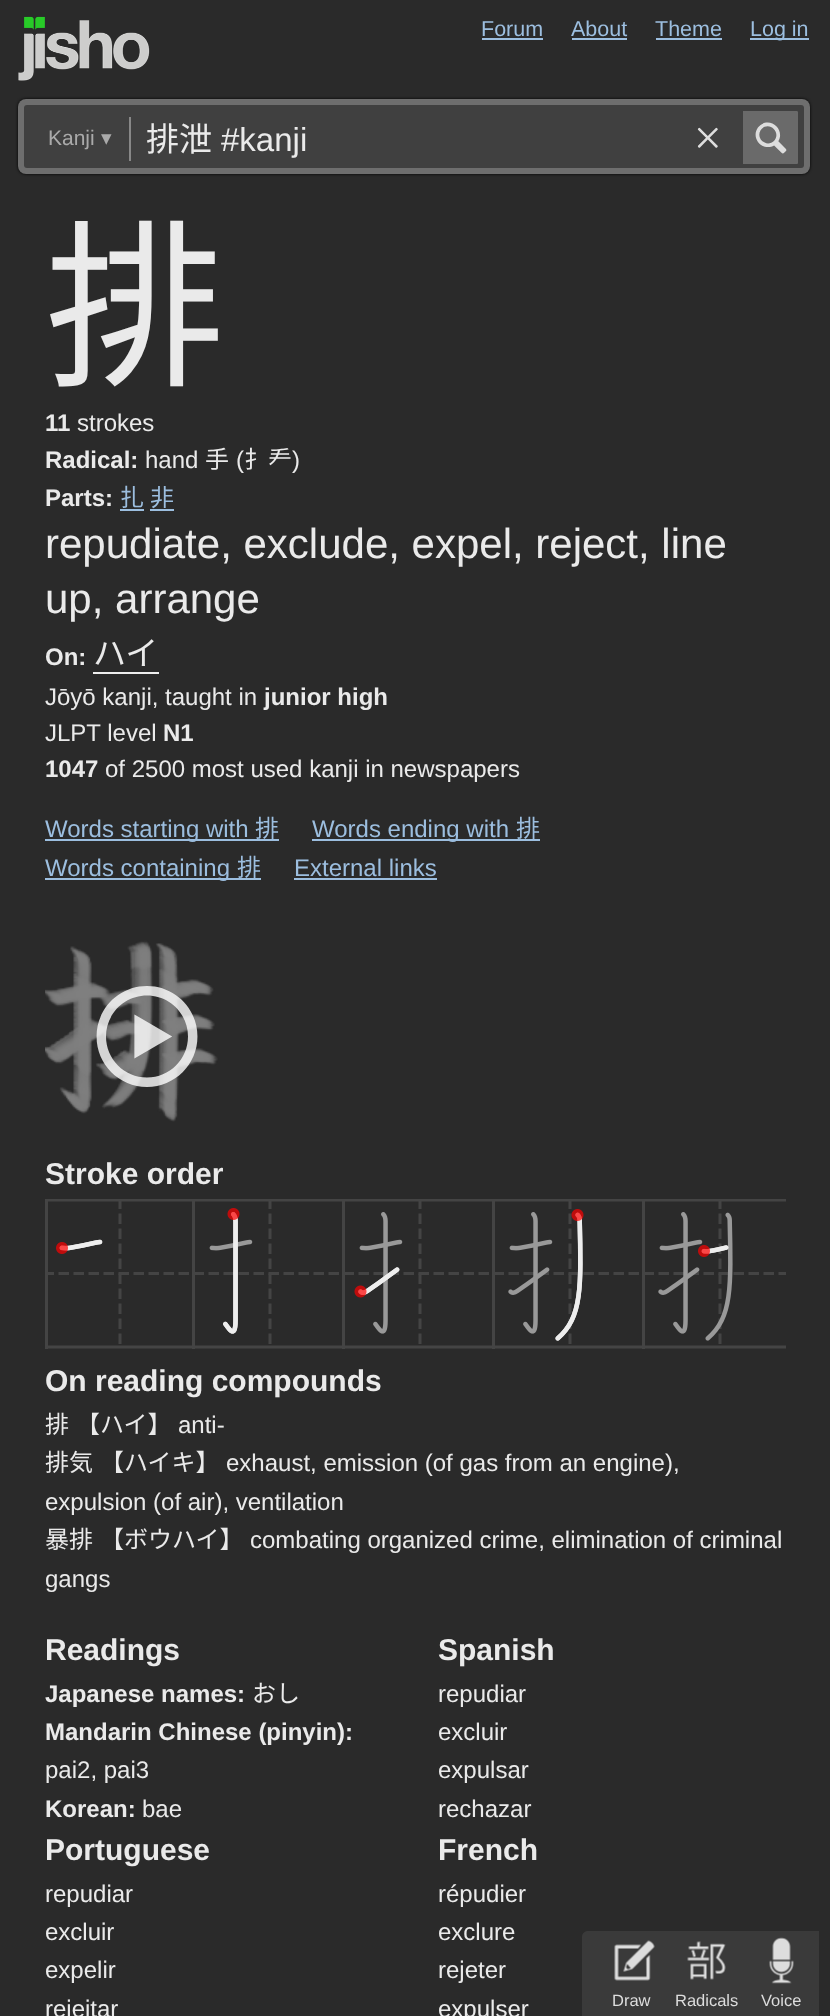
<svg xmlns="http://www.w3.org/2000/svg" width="830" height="2016">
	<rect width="100%" height="100%" fill="#2A2A2A" />
	<image x="18" y="16" width="132" height="65" href="assets/img1.png" />
	<text x="481" y="36" font-family="Liberation Sans" font-size="21.5" fill="#9CBEDF">Forum</text>
	<rect x="482" y="38" width="61" height="2" fill="#9CBEDF" />
	<text x="571" y="36" font-family="Liberation Sans" font-size="21.5" fill="#9CBEDF">About</text>
	<rect x="572" y="38" width="55" height="2" fill="#9CBEDF" />
	<text x="655" y="36" font-family="Liberation Sans" font-size="21.5" fill="#9CBEDF">Theme</text>
	<rect x="656" y="38" width="66" height="2" fill="#9CBEDF" />
	<rect x="750" y="38" width="59" height="2" fill="#9CBEDF" />
	<text x="750" y="36" font-family="Liberation Sans" font-size="21.5" fill="#9CBEDF">Log in</text>
	<rect x="18" y="99" width="792" height="75" rx="8" fill="#000000" filter="blur(1.5px)" />
	<rect x="18" y="99" width="792" height="75" rx="8" fill="#6E6E6E" />
	<rect x="24" y="105" width="780" height="63" rx="3" fill="#404040" />
	<rect x="129" y="117" width="2" height="44" fill="#888888" />
	<text x="48" y="145" font-family="Liberation Sans" font-size="21" fill="#AAAAAA">Kanji</text>
	<text x="101" y="145" font-family="DejaVu Sans" font-size="21" fill="#AAAAAA">▾</text>
	<text x="146" y="151" font-family="Noto Sans CJK JP" font-size="33" fill="#EAEAEA">排泄</text>
	<text x="221" y="151" font-family="Liberation Sans" font-size="33" fill="#EAEAEA">#kanji</text>
	<image x="697" y="127" width="21" height="21" href="assets/img2.png" />
	<path d="M743 111H796.5C797.5 111 798 111.5 798 112.5V162.5C798 163.5 797.5 164 796.5 164H743Z" fill="#6A6A6A" />
	<image x="755" y="122" width="32" height="32" href="assets/img3.png" />
	<path d="M588 1931H819V2016H582V1937C582 1933.5 584.5 1931 588 1931Z" fill="#3A3A3A" />
	<image x="614" y="1940" width="41" height="41" href="assets/img4.png" />
	<text x="612" y="2006" font-family="Liberation Sans" font-size="16.5" fill="#DDDDDD">Draw</text>
	<image x="687" y="1941" width="39" height="39" href="assets/img5.png" />
	<text x="675" y="2006" font-family="Liberation Sans" font-size="16.5" fill="#DDDDDD">Radicals</text>
	<image x="769" y="1937" width="25" height="47" href="assets/img6.png" />
	<text x="761" y="2006" font-family="Liberation Sans" font-size="16.5" fill="#DDDDDD">Voice</text>
	<text x="45" y="372" font-family="Noto Sans CJK JP" font-size="180" fill="#EAEAEA">排</text>
	<text x="45" y="431" font-family="Liberation Sans" font-size="24" font-weight="700" fill="#EAEAEA">11</text>
	<text x="77" y="431" font-family="Liberation Sans" font-size="24" fill="#EAEAEA">strokes</text>
	<text x="45" y="468" font-family="Liberation Sans" font-size="24" font-weight="700" fill="#EAEAEA">Radical:</text>
	<text x="145" y="468" font-family="Liberation Sans" font-size="24" fill="#EAEAEA">hand</text>
	<text x="205" y="468" font-family="Noto Sans CJK JP" font-size="24" fill="#EAEAEA">手</text>
	<text x="236" y="468" font-family="Liberation Sans" font-size="24" fill="#EAEAEA">(</text>
	<text x="244" y="468" font-family="Noto Sans CJK JP" font-size="24" fill="#EAEAEA">扌龵</text>
	<text x="292" y="468" font-family="Liberation Sans" font-size="24" fill="#EAEAEA">)</text>
	<text x="45" y="506" font-family="Liberation Sans" font-size="24" font-weight="700" fill="#EAEAEA">Parts:</text>
	<text x="120" y="506" font-family="Noto Sans CJK JP" font-size="24" fill="#9CBEDF">扎</text>
	<rect x="120" y="509" width="24" height="2" fill="#9CBEDF" />
	<text x="150" y="506" font-family="Noto Sans CJK JP" font-size="24" fill="#9CBEDF">非</text>
	<rect x="150" y="509" width="24" height="2" fill="#9CBEDF" />
	<g font-family="Liberation Sans" font-size="42" fill="#EAEAEA">
		<text x="45" y="558">repudiate, exclude, expel, reject, line</text>
		<text x="45" y="613">up, arrange</text>
	</g>
	<text x="45" y="665" font-family="Liberation Sans" font-size="24" font-weight="700" fill="#EAEAEA">On:</text>
	<text x="93" y="665" font-family="Noto Sans CJK JP" font-size="33" fill="#EAEAEA">ハイ</text>
	<rect x="93" y="672" width="66" height="2" fill="#EEEEEE" />
	<text x="45" y="705" font-family="Liberation Sans" font-size="24" fill="#EAEAEA">Jōyō kanji, taught in</text>
	<text x="264" y="705" font-family="Liberation Sans" font-size="24" font-weight="700" fill="#EAEAEA">junior high</text>
	<text x="45" y="741" font-family="Liberation Sans" font-size="24" fill="#EAEAEA">JLPT level</text>
	<g font-family="Liberation Sans" font-size="24" font-weight="700" fill="#EAEAEA">
		<text x="163" y="741">N1</text>
		<text x="45" y="777">1047</text>
	</g>
	<text x="105" y="777" font-family="Liberation Sans" font-size="24" fill="#EAEAEA">of 2500 most used kanji in newspapers</text>
	<rect x="45" y="839" width="234" height="2" fill="#9CBEDF" />
	<text x="45" y="837" font-family="Liberation Sans" font-size="24" fill="#9CBEDF">Words starting with</text>
	<text x="255" y="837" font-family="Noto Sans CJK JP" font-size="24" fill="#9CBEDF">排</text>
	<rect x="312" y="839" width="228" height="2" fill="#9CBEDF" />
	<text x="312" y="837" font-family="Liberation Sans" font-size="24" fill="#9CBEDF">Words ending with</text>
	<text x="516" y="837" font-family="Noto Sans CJK JP" font-size="24" fill="#9CBEDF">排</text>
	<rect x="45" y="878" width="216" height="2" fill="#9CBEDF" />
	<text x="45" y="876" font-family="Liberation Sans" font-size="24" fill="#9CBEDF">Words containing</text>
	<text x="237" y="876" font-family="Noto Sans CJK JP" font-size="24" fill="#9CBEDF">排</text>
	<text x="294" y="876" font-family="Liberation Sans" font-size="24" fill="#9CBEDF">External links</text>
	<rect x="294" y="878" width="143" height="2" fill="#9CBEDF" />
	<image x="45" y="940" width="173" height="182" href="assets/img7.png" />
	<image x="96" y="986" width="102" height="101" href="assets/img8.png" />
	<text x="45" y="1184" font-family="Liberation Sans" font-size="30" font-weight="700" fill="#EAEAEA">Stroke order</text>
	<image x="45" y="1199" width="741" height="150" href="assets/img9.png" />
	<text x="45" y="1391" font-family="Liberation Sans" font-size="30" font-weight="700" fill="#EAEAEA">On reading compounds</text>
	<g font-family="Noto Sans CJK JP" font-size="24" fill="#EAEAEA">
		<text x="45" y="1433">排</text>
		<text x="76" y="1433">【ハイ】</text>
	</g>
	<text x="178" y="1433" font-family="Liberation Sans" font-size="24" fill="#EAEAEA">anti-</text>
	<g font-family="Noto Sans CJK JP" font-size="24" fill="#EAEAEA">
		<text x="45" y="1471">排気</text>
		<text x="100" y="1471">【ハイキ】</text>
	</g>
	<g font-family="Liberation Sans" font-size="24" fill="#EAEAEA">
		<text x="226" y="1471">exhaust, emission (of gas from an engine),</text>
		<text x="45" y="1510">expulsion (of air), ventilation</text>
	</g>
	<g font-family="Noto Sans CJK JP" font-size="24" fill="#EAEAEA">
		<text x="45" y="1548">暴排</text>
		<text x="100" y="1548">【ボウハイ】</text>
	</g>
	<g font-family="Liberation Sans" font-size="24" fill="#EAEAEA">
		<text x="250" y="1548">combating organized crime, elimination of criminal</text>
		<text x="45" y="1587">gangs</text>
	</g>
	<text x="45" y="1660" font-family="Liberation Sans" font-size="30" font-weight="700" fill="#EAEAEA">Readings</text>
	<text x="45" y="1702" font-family="Liberation Sans" font-size="24" font-weight="700" fill="#EAEAEA">Japanese names:</text>
	<text x="252" y="1702" font-family="Noto Sans CJK JP" font-size="24" fill="#EAEAEA">おし</text>
	<text x="45" y="1740" font-family="Liberation Sans" font-size="24" font-weight="700" fill="#EAEAEA">Mandarin Chinese (pinyin):</text>
	<text x="45" y="1778" font-family="Liberation Sans" font-size="24" fill="#EAEAEA">pai2, pai3</text>
	<text x="45" y="1817" font-family="Liberation Sans" font-size="24" font-weight="700" fill="#EAEAEA">Korean:</text>
	<text x="142" y="1817" font-family="Liberation Sans" font-size="24" fill="#EAEAEA">bae</text>
	<text x="438" y="1660" font-family="Liberation Sans" font-size="30" font-weight="700" fill="#EAEAEA">Spanish</text>
	<g font-family="Liberation Sans" font-size="24" fill="#EAEAEA">
		<text x="438" y="1702">repudiar</text>
		<text x="438" y="1740">excluir</text>
		<text x="438" y="1778">expulsar</text>
		<text x="438" y="1817">rechazar</text>
	</g>
	<text x="45" y="1860" font-family="Liberation Sans" font-size="30" font-weight="700" fill="#EAEAEA">Portuguese</text>
	<g font-family="Liberation Sans" font-size="24" fill="#EAEAEA">
		<text x="45" y="1902">repudiar</text>
		<text x="45" y="1940">excluir</text>
		<text x="45" y="1978">expelir</text>
		<text x="45" y="2017">rejeitar</text>
	</g>
	<text x="438" y="1860" font-family="Liberation Sans" font-size="30" font-weight="700" fill="#EAEAEA">French</text>
	<g font-family="Liberation Sans" font-size="24" fill="#EAEAEA">
		<text x="438" y="1902">répudier</text>
		<text x="438" y="1940">exclure</text>
		<text x="438" y="1978">rejeter</text>
		<text x="438" y="2017">expulser</text>
	</g>
</svg>
